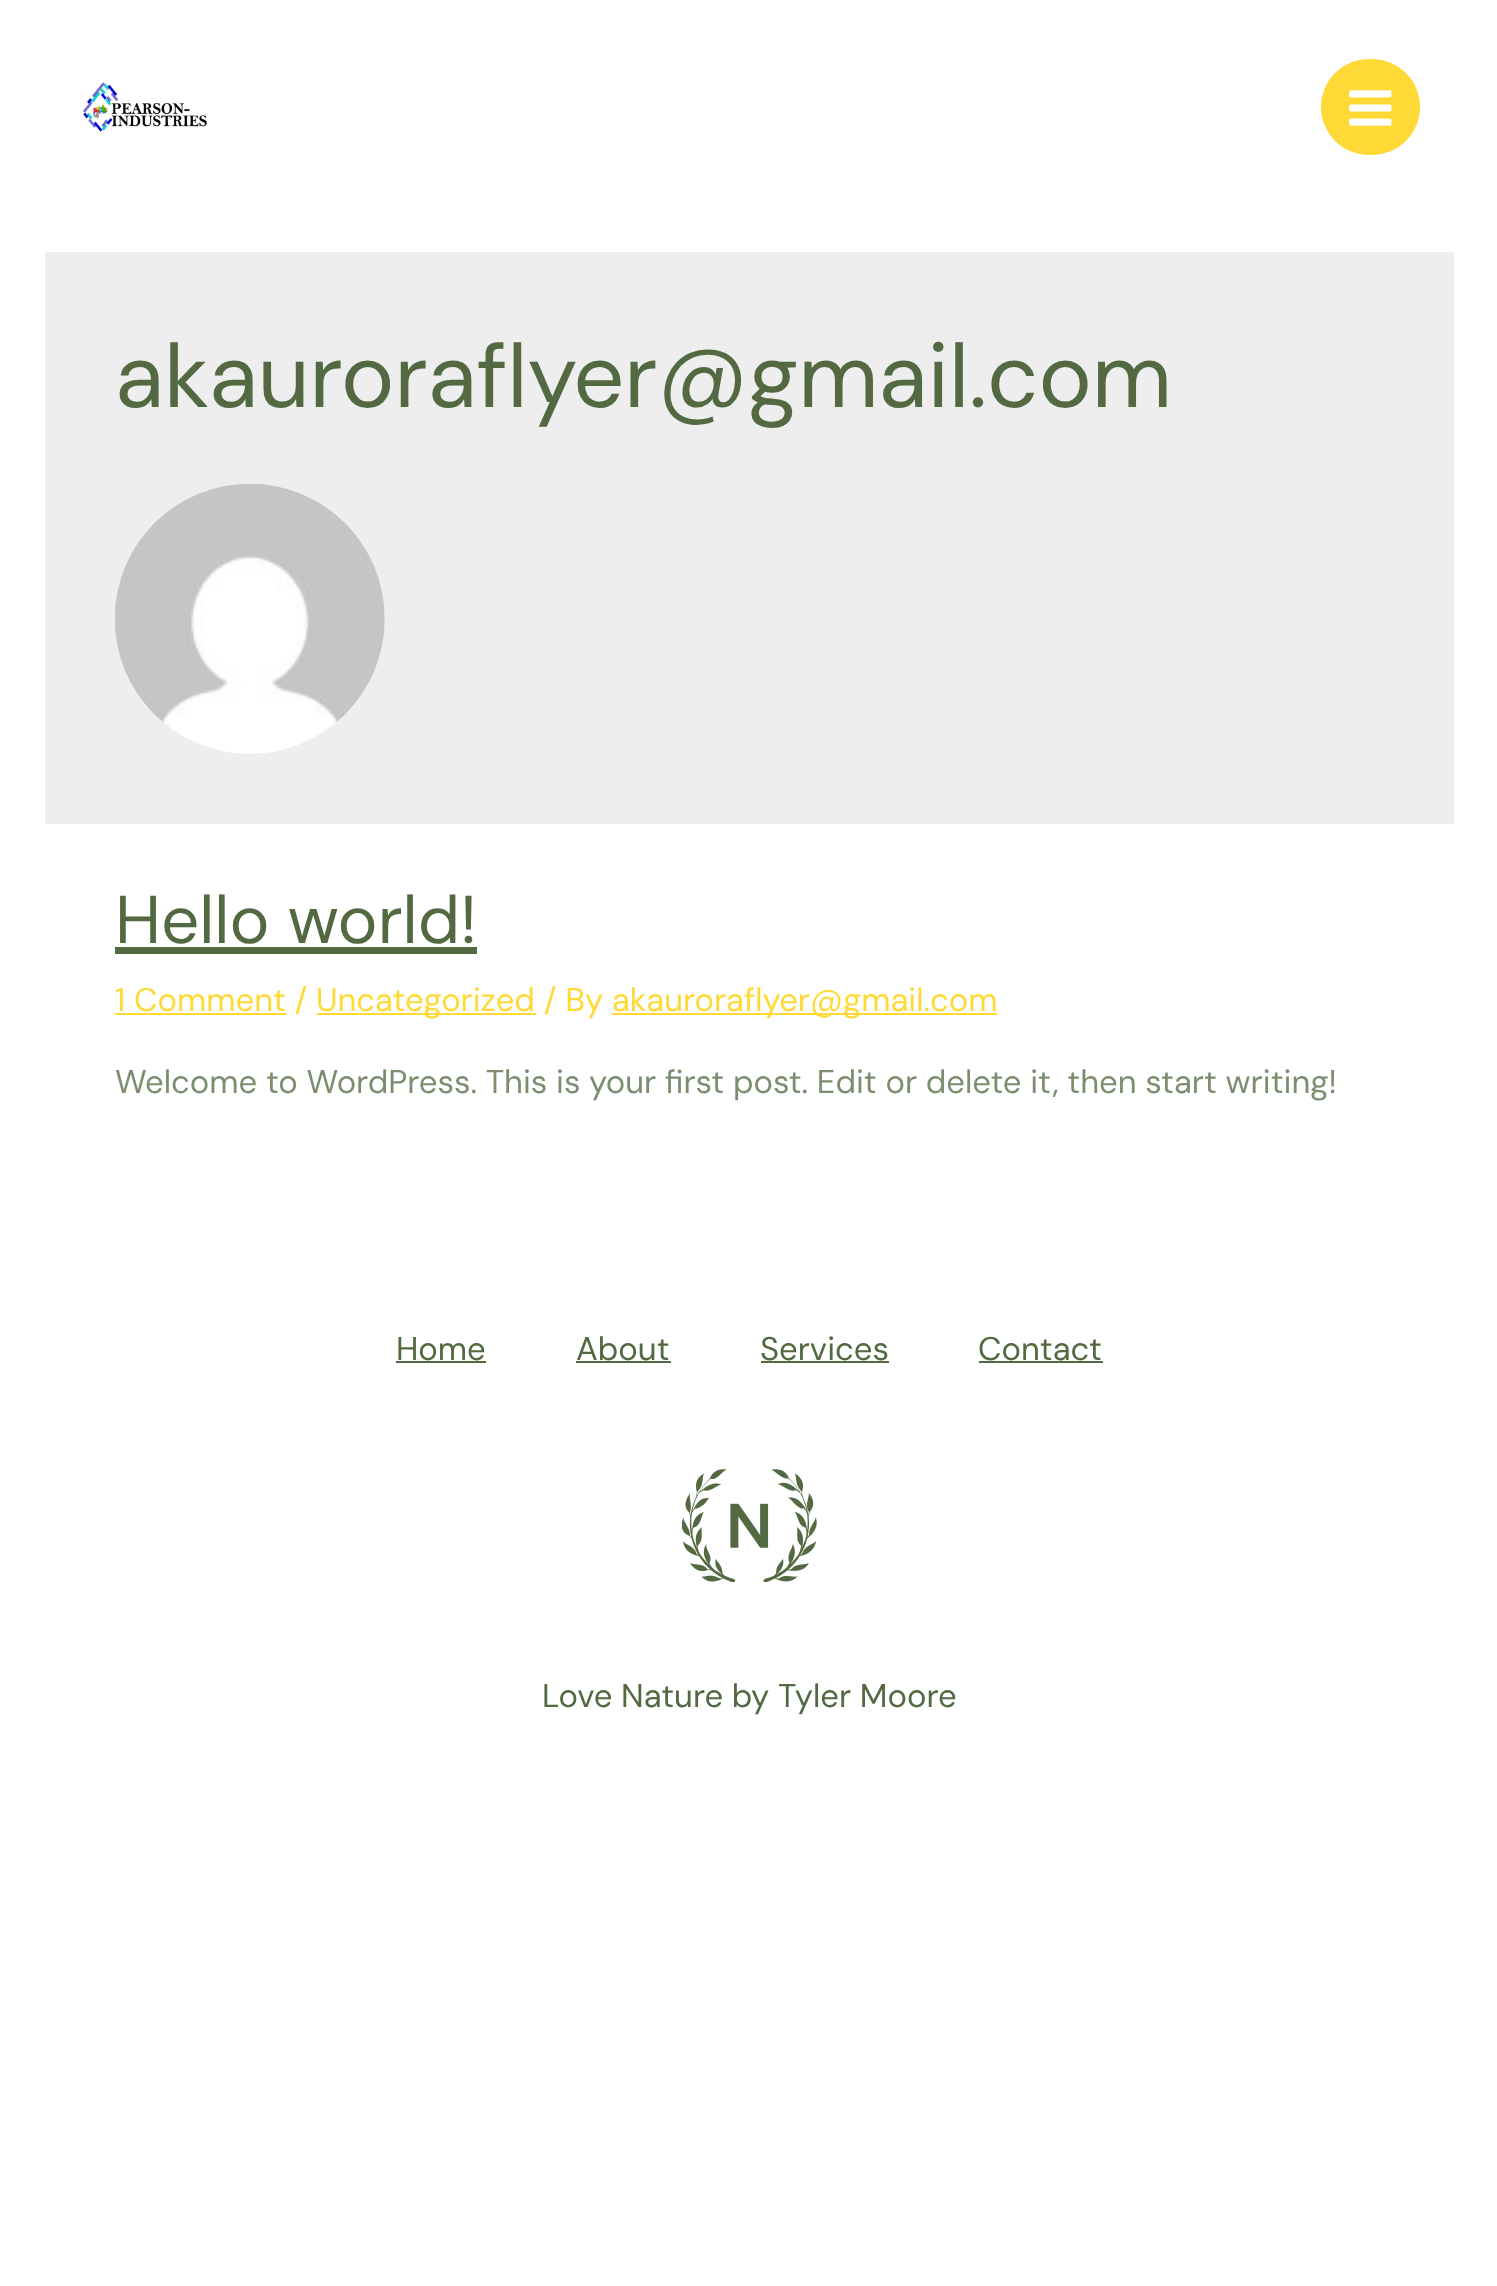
<svg xmlns="http://www.w3.org/2000/svg" width="1497" height="2286">
	<rect width="100%" height="100%" fill="#FFFFFF" />
	<image x="83" y="82" width="124" height="50" href="assets/img1.png" />
	<rect x="1321" y="59" width="99" height="96" rx="48" fill="#FFD936" />
	<image x="1349" y="90" width="43" height="36" href="assets/img2.png" />
	<rect x="45" y="252" width="1409" height="572" fill="#EEEEEE" />
	<text x="115" y="407" font-family="DM Sans" font-size="90" fill="#536942">akauroraflyer@gmail.com</text>
	<image x="115" y="484" width="270" height="270" href="assets/img3.png" />
	<text x="115" y="943" font-family="DM Sans" font-size="67.5" fill="#536942">Hello world!</text>
	<rect x="115" y="947" width="362" height="7" fill="#536942" />
	<rect x="115" y="1013" width="171" height="2" fill="#FFD936" />
	<text x="115" y="1011" font-family="DM Sans" font-size="32.85" fill="#FFD936">1 Comment /</text>
	<rect x="317" y="1013" width="219" height="2" fill="#FFD936" />
	<text x="316" y="1011" font-family="DM Sans" font-size="32.85" fill="#FFD936">Uncategorized / By</text>
	<rect x="612" y="1013" width="385" height="2" fill="#FFD936" />
	<text x="612" y="1011" font-family="DM Sans" font-size="32.85" fill="#FFD936">akauroraflyer@gmail.com</text>
	<text x="115" y="1093" font-family="DM Sans" font-size="32.85" fill="#7D8E70">Welcome to WordPress. This is your first post. Edit or delete it, then start writing!</text>
	<text x="396" y="1360" font-family="DM Sans" font-size="32.85" fill="#536942">Home</text>
	<rect x="396" y="1361" width="90" height="2" fill="#536942" />
	<text x="576" y="1360" font-family="DM Sans" font-size="32.85" fill="#536942">About</text>
	<rect x="576" y="1361" width="95" height="2" fill="#536942" />
	<text x="760" y="1360" font-family="DM Sans" font-size="32.85" fill="#536942">Services</text>
	<rect x="761" y="1361" width="128" height="2" fill="#536942" />
	<text x="978" y="1360" font-family="DM Sans" font-size="32.85" fill="#536942">Contact</text>
	<rect x="979" y="1361" width="124" height="2" fill="#536942" />
	<image x="682" y="1469" width="135" height="113" href="assets/img4.png" />
	<text x="542" y="1707" font-family="DM Sans" font-size="32.85" fill="#536942">Love Nature by Tyler Moore</text>
</svg>
